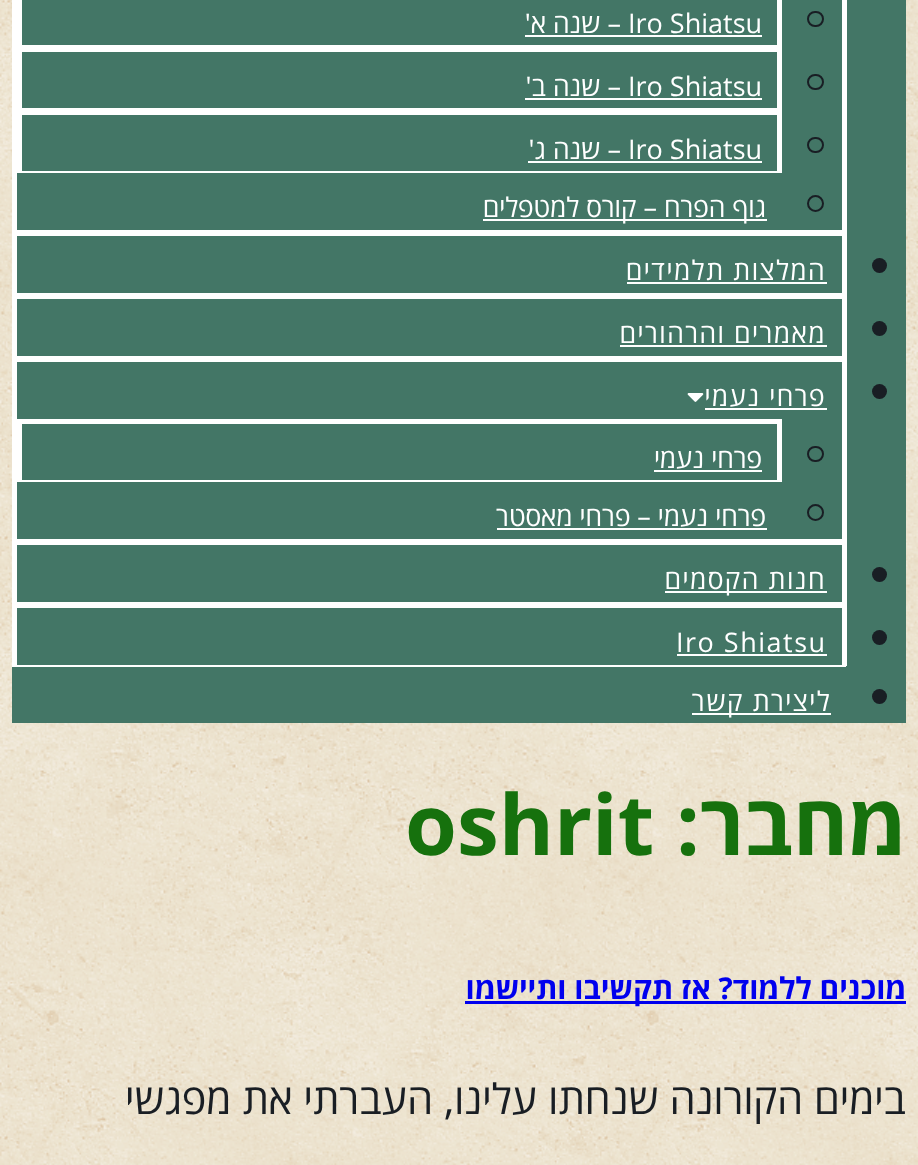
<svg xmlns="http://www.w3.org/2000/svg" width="918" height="1165">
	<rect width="100%" height="100%" fill="#FFFFFF" />
	<image x="0" y="0" width="918" height="1165" href="assets/img1.png" />
	<rect x="12" y="0" width="894" height="723" fill="#437666" />
	<rect x="842" y="0" width="5" height="231" fill="#FFFFFF" />
	<rect x="12" y="230" width="834" height="6" fill="#FFFFFF" />
	<rect x="12" y="0" width="5" height="231" fill="#FFFFFF" />
	<rect x="777" y="0" width="5" height="47" fill="#FFFFFF" />
	<rect x="17" y="45" width="765" height="7" fill="#FFFFFF" />
	<rect x="17" y="0" width="5" height="47" fill="#FFFFFF" />
	<rect x="808" y="12" width="15" height="14" rx="7" fill="none" stroke="#191E24" stroke-width="2" />
	<text x="628" y="33" font-family="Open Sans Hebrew" font-size="27" fill="#FFFFFF">Iro Shiatsu</text>
	<text x="621" y="33" font-family="Open Sans Hebrew" font-size="27" direction="rtl" fill="#FFFFFF">– שנה א'</text>
	<rect x="525" y="35" width="237" height="2" fill="#FFFFFF" />
	<rect x="777" y="47" width="5" height="63" fill="#FFFFFF" />
	<rect x="17" y="108" width="765" height="7" fill="#FFFFFF" />
	<rect x="17" y="47" width="5" height="63" fill="#FFFFFF" />
	<rect x="808" y="75" width="15" height="14" rx="7" fill="none" stroke="#191E24" stroke-width="2" />
	<text x="628" y="96" font-family="Open Sans Hebrew" font-size="27" fill="#FFFFFF">Iro Shiatsu</text>
	<text x="621" y="96" font-family="Open Sans Hebrew" font-size="27" direction="rtl" fill="#FFFFFF">– שנה ב'</text>
	<rect x="525" y="98" width="237" height="2" fill="#FFFFFF" />
	<rect x="777" y="110" width="5" height="63" fill="#FFFFFF" />
	<rect x="17" y="171" width="765" height="2" fill="#FFFFFF" />
	<rect x="17" y="110" width="5" height="63" fill="#FFFFFF" />
	<rect x="808" y="138" width="15" height="14" rx="7" fill="none" stroke="#191E24" stroke-width="2" />
	<text x="628" y="159" font-family="Open Sans Hebrew" font-size="27" fill="#FFFFFF">Iro Shiatsu</text>
	<text x="621" y="159" font-family="Open Sans Hebrew" font-size="27" direction="rtl" fill="#FFFFFF">– שנה ג'</text>
	<rect x="528" y="161" width="234" height="2" fill="#FFFFFF" />
	<circle cx="815.5" cy="203.5" r="7.5" fill="none" stroke="#191E24" stroke-width="2" />
	<rect x="483" y="219" width="284" height="2" fill="#FFFFFF" />
	<text x="766" y="217" font-family="Open Sans Hebrew" font-size="27" direction="rtl" fill="#FFFFFF">גוף הפרח – קורס למטפלים</text>
	<rect x="842" y="231" width="5" height="63" fill="#FFFFFF" />
	<rect x="12" y="293" width="834" height="6" fill="#FFFFFF" />
	<rect x="12" y="231" width="5" height="63" fill="#FFFFFF" />
	<circle cx="879.5" cy="265.5" r="7.5" fill="#191E24" />
	<text x="826" y="280" font-family="Open Sans Hebrew" font-size="27" letter-spacing="1.5" direction="rtl" fill="#FFFFFF">המלצות תלמידים</text>
	<rect x="627" y="282" width="200" height="2" fill="#FFFFFF" />
	<rect x="842" y="294" width="5" height="63" fill="#FFFFFF" />
	<rect x="12" y="356" width="834" height="6" fill="#FFFFFF" />
	<rect x="12" y="294" width="5" height="63" fill="#FFFFFF" />
	<circle cx="879.5" cy="328.5" r="7.5" fill="#191E24" />
	<text x="826" y="343" font-family="Open Sans Hebrew" font-size="27" letter-spacing="1.5" direction="rtl" fill="#FFFFFF">מאמרים והרהורים</text>
	<rect x="620" y="345" width="207" height="2" fill="#FFFFFF" />
	<rect x="842" y="357" width="5" height="183" fill="#FFFFFF" />
	<rect x="12" y="539" width="834" height="6" fill="#FFFFFF" />
	<rect x="12" y="357" width="5" height="183" fill="#FFFFFF" />
	<circle cx="879.5" cy="391.5" r="7.5" fill="#191E24" />
	<text x="826" y="406" font-family="Open Sans Hebrew" font-size="27" letter-spacing="1.5" direction="rtl" fill="#FFFFFF">פרחי נעמי</text>
	<rect x="705" y="408" width="122" height="2" fill="#FFFFFF" />
	<image x="687" y="393" width="17" height="9" href="assets/img2.png" />
	<rect x="17" y="419" width="765" height="5" fill="#FFFFFF" />
	<rect x="777" y="419" width="5" height="63" fill="#FFFFFF" />
	<rect x="17" y="480" width="765" height="2" fill="#FFFFFF" />
	<rect x="17" y="419" width="5" height="63" fill="#FFFFFF" />
	<rect x="808" y="447" width="15" height="14" rx="7" fill="none" stroke="#191E24" stroke-width="2" />
	<text x="762" y="468" font-family="Open Sans Hebrew" font-size="27" direction="rtl" fill="#FFFFFF">פרחי נעמי</text>
	<rect x="654" y="470" width="108" height="2" fill="#FFFFFF" />
	<circle cx="815.5" cy="512.5" r="7.5" fill="none" stroke="#191E24" stroke-width="2" />
	<text x="766" y="526" font-family="Open Sans Hebrew" font-size="27" direction="rtl" fill="#FFFFFF">פרחי נעמי – פרחי מאסטר</text>
	<rect x="497" y="528" width="270" height="2" fill="#FFFFFF" />
	<rect x="842" y="540" width="5" height="63" fill="#FFFFFF" />
	<rect x="12" y="602" width="834" height="6" fill="#FFFFFF" />
	<rect x="12" y="540" width="5" height="63" fill="#FFFFFF" />
	<circle cx="879.5" cy="574.5" r="7.5" fill="#191E24" />
	<rect x="665" y="591" width="162" height="2" fill="#FFFFFF" />
	<text x="826" y="589" font-family="Open Sans Hebrew" font-size="27" letter-spacing="1.5" direction="rtl" fill="#FFFFFF">חנות הקסמים</text>
	<rect x="842" y="603" width="5" height="63" fill="#FFFFFF" />
	<rect x="12" y="665" width="834" height="2" fill="#FFFFFF" />
	<rect x="12" y="603" width="5" height="63" fill="#FFFFFF" />
	<circle cx="879.5" cy="637.5" r="7.5" fill="#191E24" />
	<text x="676" y="652" font-family="Open Sans Hebrew" font-size="27" letter-spacing="1.5" fill="#FFFFFF">Iro Shiatsu</text>
	<rect x="677" y="654" width="150" height="2" fill="#FFFFFF" />
	<circle cx="879.5" cy="696.5" r="7.5" fill="#191E24" />
	<rect x="692" y="713" width="139" height="2" fill="#FFFFFF" />
	<text x="831" y="711" font-family="Open Sans Hebrew" font-size="27" letter-spacing="1.5" direction="rtl" fill="#FFFFFF">ליצירת קשר</text>
	<text x="906" y="855" font-family="Open Sans Hebrew" font-size="84" font-weight="700" direction="rtl" fill="#16710D">מחבר:</text>
	<text x="405" y="855" font-family="Open Sans Hebrew" font-size="84" font-weight="700" fill="#16710D">oshrit</text>
	<rect x="465" y="1001" width="441" height="3" fill="#0000EE" />
	<text x="906" y="999" font-family="Open Sans Hebrew" font-size="30" font-weight="700" direction="rtl" fill="#0000EE">מוכנים ללמוד? אז תקשיבו ותיישמו</text>
	<text x="906" y="1114" font-family="Open Sans Hebrew" font-size="42" direction="rtl" fill="#191E24">בימים הקורונה שנחתו עלינו, העברתי את מפגשי</text>
</svg>
